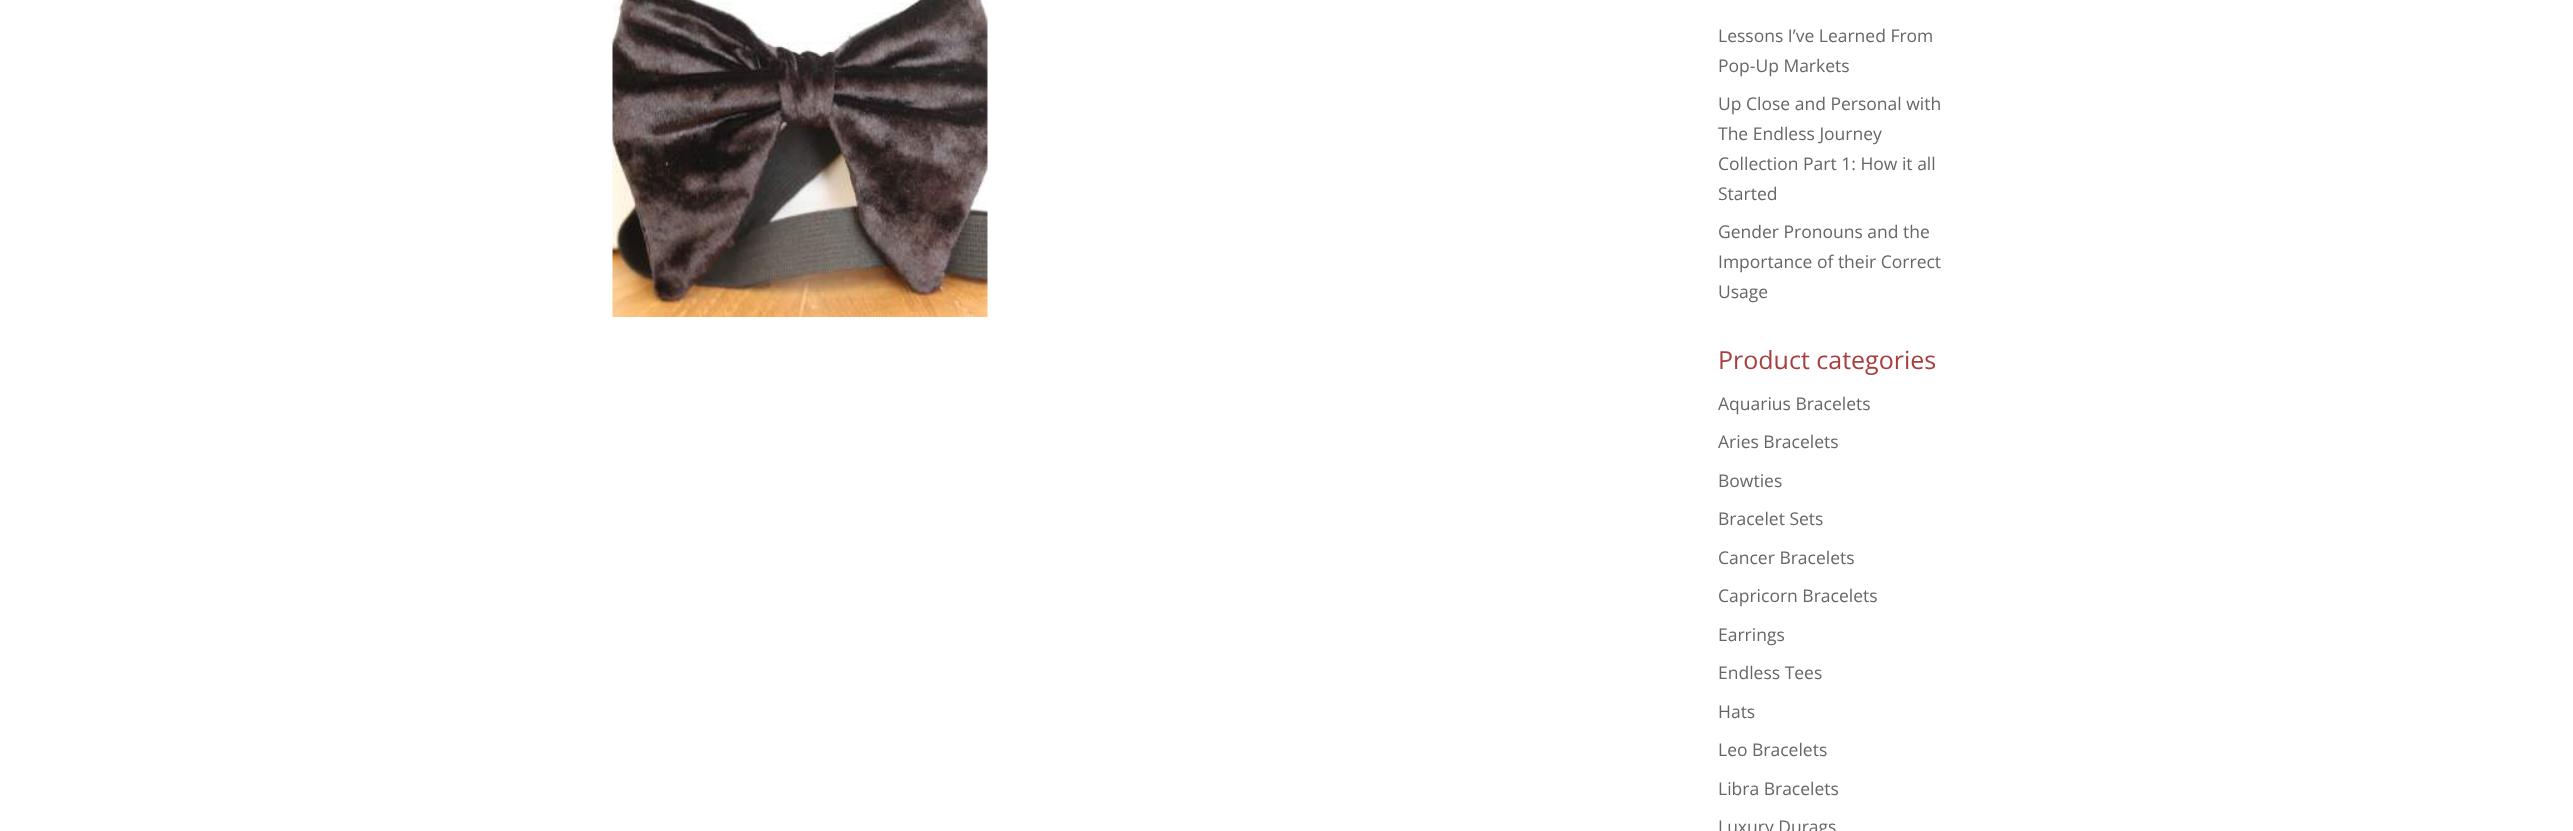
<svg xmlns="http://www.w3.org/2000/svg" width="2573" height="831">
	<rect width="100%" height="100%" fill="#FFFFFF" />
	<image x="612" y="0" width="376" height="317" href="assets/img1.png" />
	<g font-family="Open Sans" font-size="17.5" fill="#666666">
		<text x="1718" y="42">Lessons I’ve Learned From</text>
		<text x="1718" y="72">Pop-Up Markets</text>
		<text x="1718" y="110">Up Close and Personal with</text>
		<text x="1718" y="140">The Endless Journey</text>
		<text x="1718" y="170">Collection Part 1: How it all</text>
		<text x="1718" y="200">Started</text>
		<text x="1718" y="238">Gender Pronouns and the</text>
		<text x="1718" y="268">Importance of their Correct</text>
		<text x="1718" y="298">Usage</text>
	</g>
	<text x="1718" y="369" font-family="Open Sans" font-size="25" fill="#A83F3F">Product categories</text>
	<g font-family="Open Sans" font-size="17.5" fill="#666666">
		<text x="1718" y="410">Aquarius Bracelets</text>
		<text x="1718" y="448">Aries Bracelets</text>
		<text x="1718" y="487">Bowties</text>
		<text x="1718" y="525">Bracelet Sets</text>
		<text x="1718" y="564">Cancer Bracelets</text>
		<text x="1718" y="602">Capricorn Bracelets</text>
		<text x="1718" y="641">Earrings</text>
		<text x="1718" y="679">Endless Tees</text>
		<text x="1718" y="718">Hats</text>
		<text x="1718" y="756">Leo Bracelets</text>
		<text x="1718" y="795">Libra Bracelets</text>
		<text x="1718" y="833">Luxury Durags</text>
	</g>
</svg>
